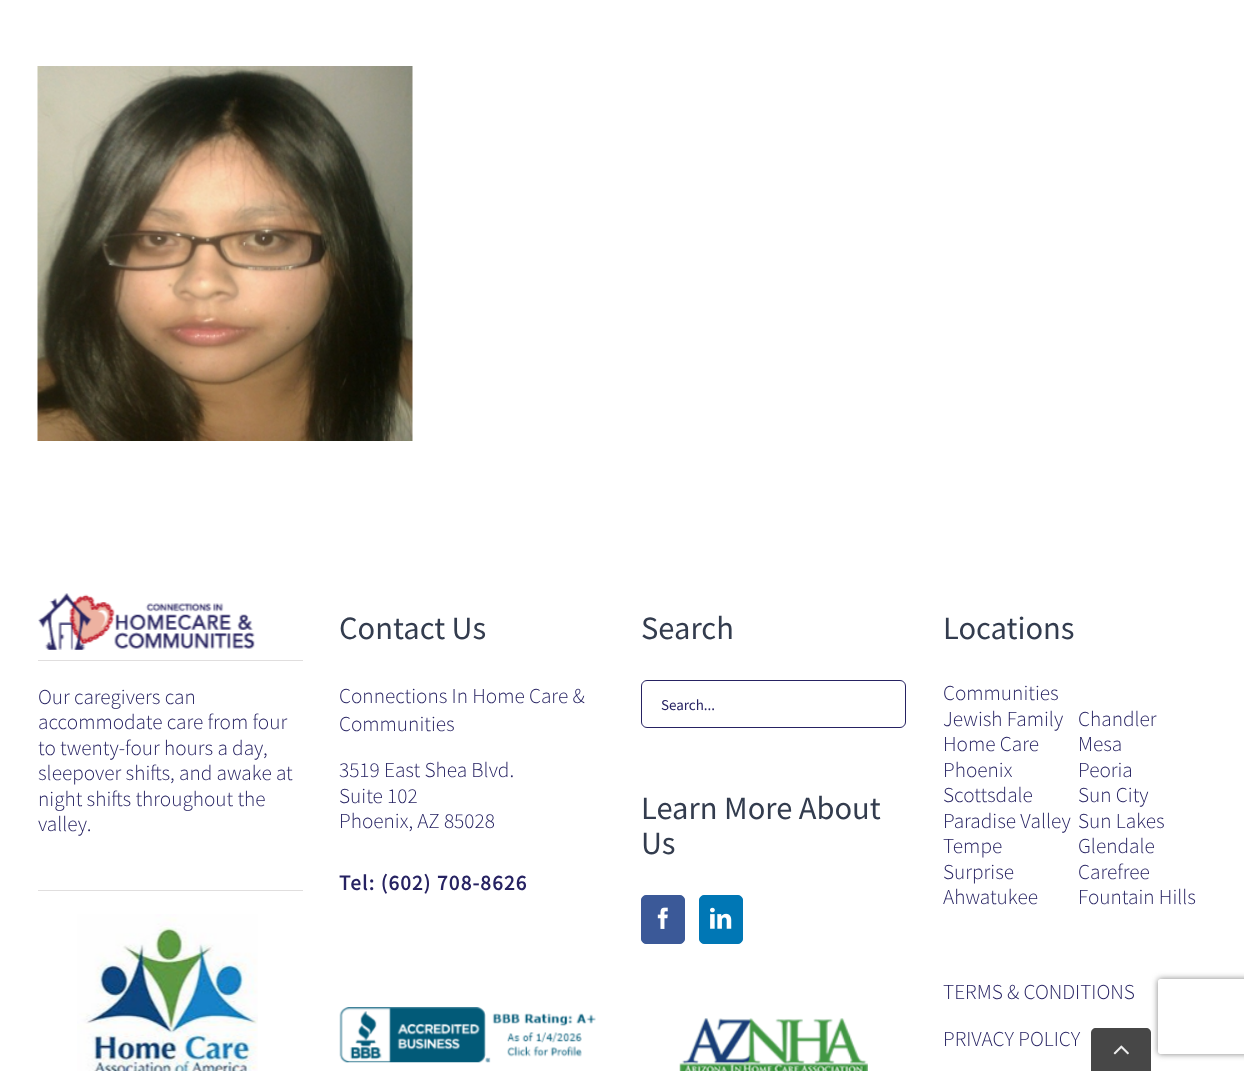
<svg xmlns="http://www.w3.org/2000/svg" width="1244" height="1071">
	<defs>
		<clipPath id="clip1"><path d="M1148 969H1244V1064H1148ZM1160.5 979H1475.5C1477 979 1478 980 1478 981.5V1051.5C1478 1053 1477 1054 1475.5 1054H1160.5C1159 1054 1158 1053 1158 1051.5V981.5C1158 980 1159 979 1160.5 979Z" clip-rule="evenodd" /></clipPath>
	</defs>
	<rect width="100%" height="100%" fill="#FFFFFF" />
	<image x="37" y="66" width="376" height="375" href="assets/img1.png" />
	<image x="38" y="593" width="217" height="57" href="assets/img2.png" />
	<rect x="38" y="660" width="265" height="1" fill="#E0DEDE" />
	<g font-family="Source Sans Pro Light" font-size="21.25" font-weight="300" fill="#262262">
		<text x="38" y="704">Our caregivers can</text>
		<text x="38" y="729">accommodate care from four</text>
		<text x="38" y="755">to twenty-four hours a day,</text>
		<text x="38" y="780">sleepover shifts, and awake at</text>
		<text x="38" y="806">night shifts throughout the</text>
		<text x="38" y="831">valley.</text>
	</g>
	<rect x="38" y="890" width="265" height="1" fill="#E0DEDE" />
	<image x="77" y="914" width="181" height="157" href="assets/img3.png" />
	<text x="339" y="639" font-family="Source Sans Pro" font-size="32.5" fill="#333C4E">Contact Us</text>
	<g font-family="Source Sans Pro Light" font-size="21.25" font-weight="300" fill="#262262">
		<text x="339" y="703">Connections In Home Care &amp;</text>
		<text x="339" y="731">Communities</text>
		<text x="339" y="777">3519 East Shea Blvd.</text>
		<text x="339" y="803">Suite 102</text>
		<text x="339" y="828">Phoenix, AZ 85028</text>
	</g>
	<text x="339" y="890" font-family="Source Sans Pro" font-size="21.25" font-weight="700" letter-spacing="1.25" fill="#262262">Tel: (602) 708-8626</text>
	<image x="339" y="1007" width="257" height="56" href="assets/img4.png" />
	<text x="641" y="639" font-family="Source Sans Pro" font-size="32.5" fill="#333C4E">Search</text>
	<rect x="641.5" y="680.5" width="264" height="47" rx="5.5" fill="none" stroke="#262262" />
	<text x="661" y="710" font-family="Source Sans Pro" font-size="15" fill="#262262">Search...</text>
	<g font-family="Source Sans Pro" font-size="32.5" fill="#333C4E">
		<text x="641" y="819">Learn More About</text>
		<text x="641" y="854">Us</text>
	</g>
	<rect x="641.5" y="895.5" width="43" height="48" rx="4.5" fill="#3B5998" stroke="#3B5998" />
	<image x="657" y="907" width="11" height="22" href="assets/img5.png" />
	<rect x="699.5" y="895.5" width="43" height="48" rx="4.5" fill="#0077B5" stroke="#0077B5" />
	<image x="710" y="907" width="22" height="22" href="assets/img6.png" />
	<image x="679" y="1018" width="189" height="53" href="assets/img7.png" />
	<text x="943" y="639" font-family="Source Sans Pro" font-size="32.5" fill="#333C4E">Locations</text>
	<g font-family="Source Sans Pro Light" font-size="21.25" font-weight="300" fill="#262262">
		<text x="943" y="700">Communities</text>
		<text x="943" y="726">Jewish Family</text>
		<text x="943" y="751">Home Care</text>
		<text x="943" y="777">Phoenix</text>
		<text x="943" y="802">Scottsdale</text>
		<text x="943" y="828">Paradise Valley</text>
		<text x="943" y="853">Tempe</text>
		<text x="943" y="879">Surprise</text>
		<text x="943" y="904">Ahwatukee</text>
		<text x="1078" y="726">Chandler</text>
		<text x="1078" y="751">Mesa</text>
		<text x="1078" y="777">Peoria</text>
		<text x="1078" y="802">Sun City</text>
		<text x="1078" y="828">Sun Lakes</text>
		<text x="1078" y="853">Glendale</text>
		<text x="1078" y="879">Carefree</text>
		<text x="1078" y="904">Fountain Hills</text>
		<text x="943" y="999">TERMS &amp; CONDITIONS</text>
		<text x="943" y="1046">PRIVACY POLICY</text>
	</g>
	<g clip-path="url(#clip1)">
		<rect x="1158" y="979" width="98" height="75" rx="2.5" fill="#808080" filter="blur(3px)" />
	</g>
	<path d="M1096 1028H1146C1149 1028 1151 1030 1151 1033V1071H1091V1033C1091 1030 1093 1028 1096 1028Z" fill="#474747" />
	<image x="1113" y="1045" width="16" height="10" href="assets/img8.png" />
</svg>
